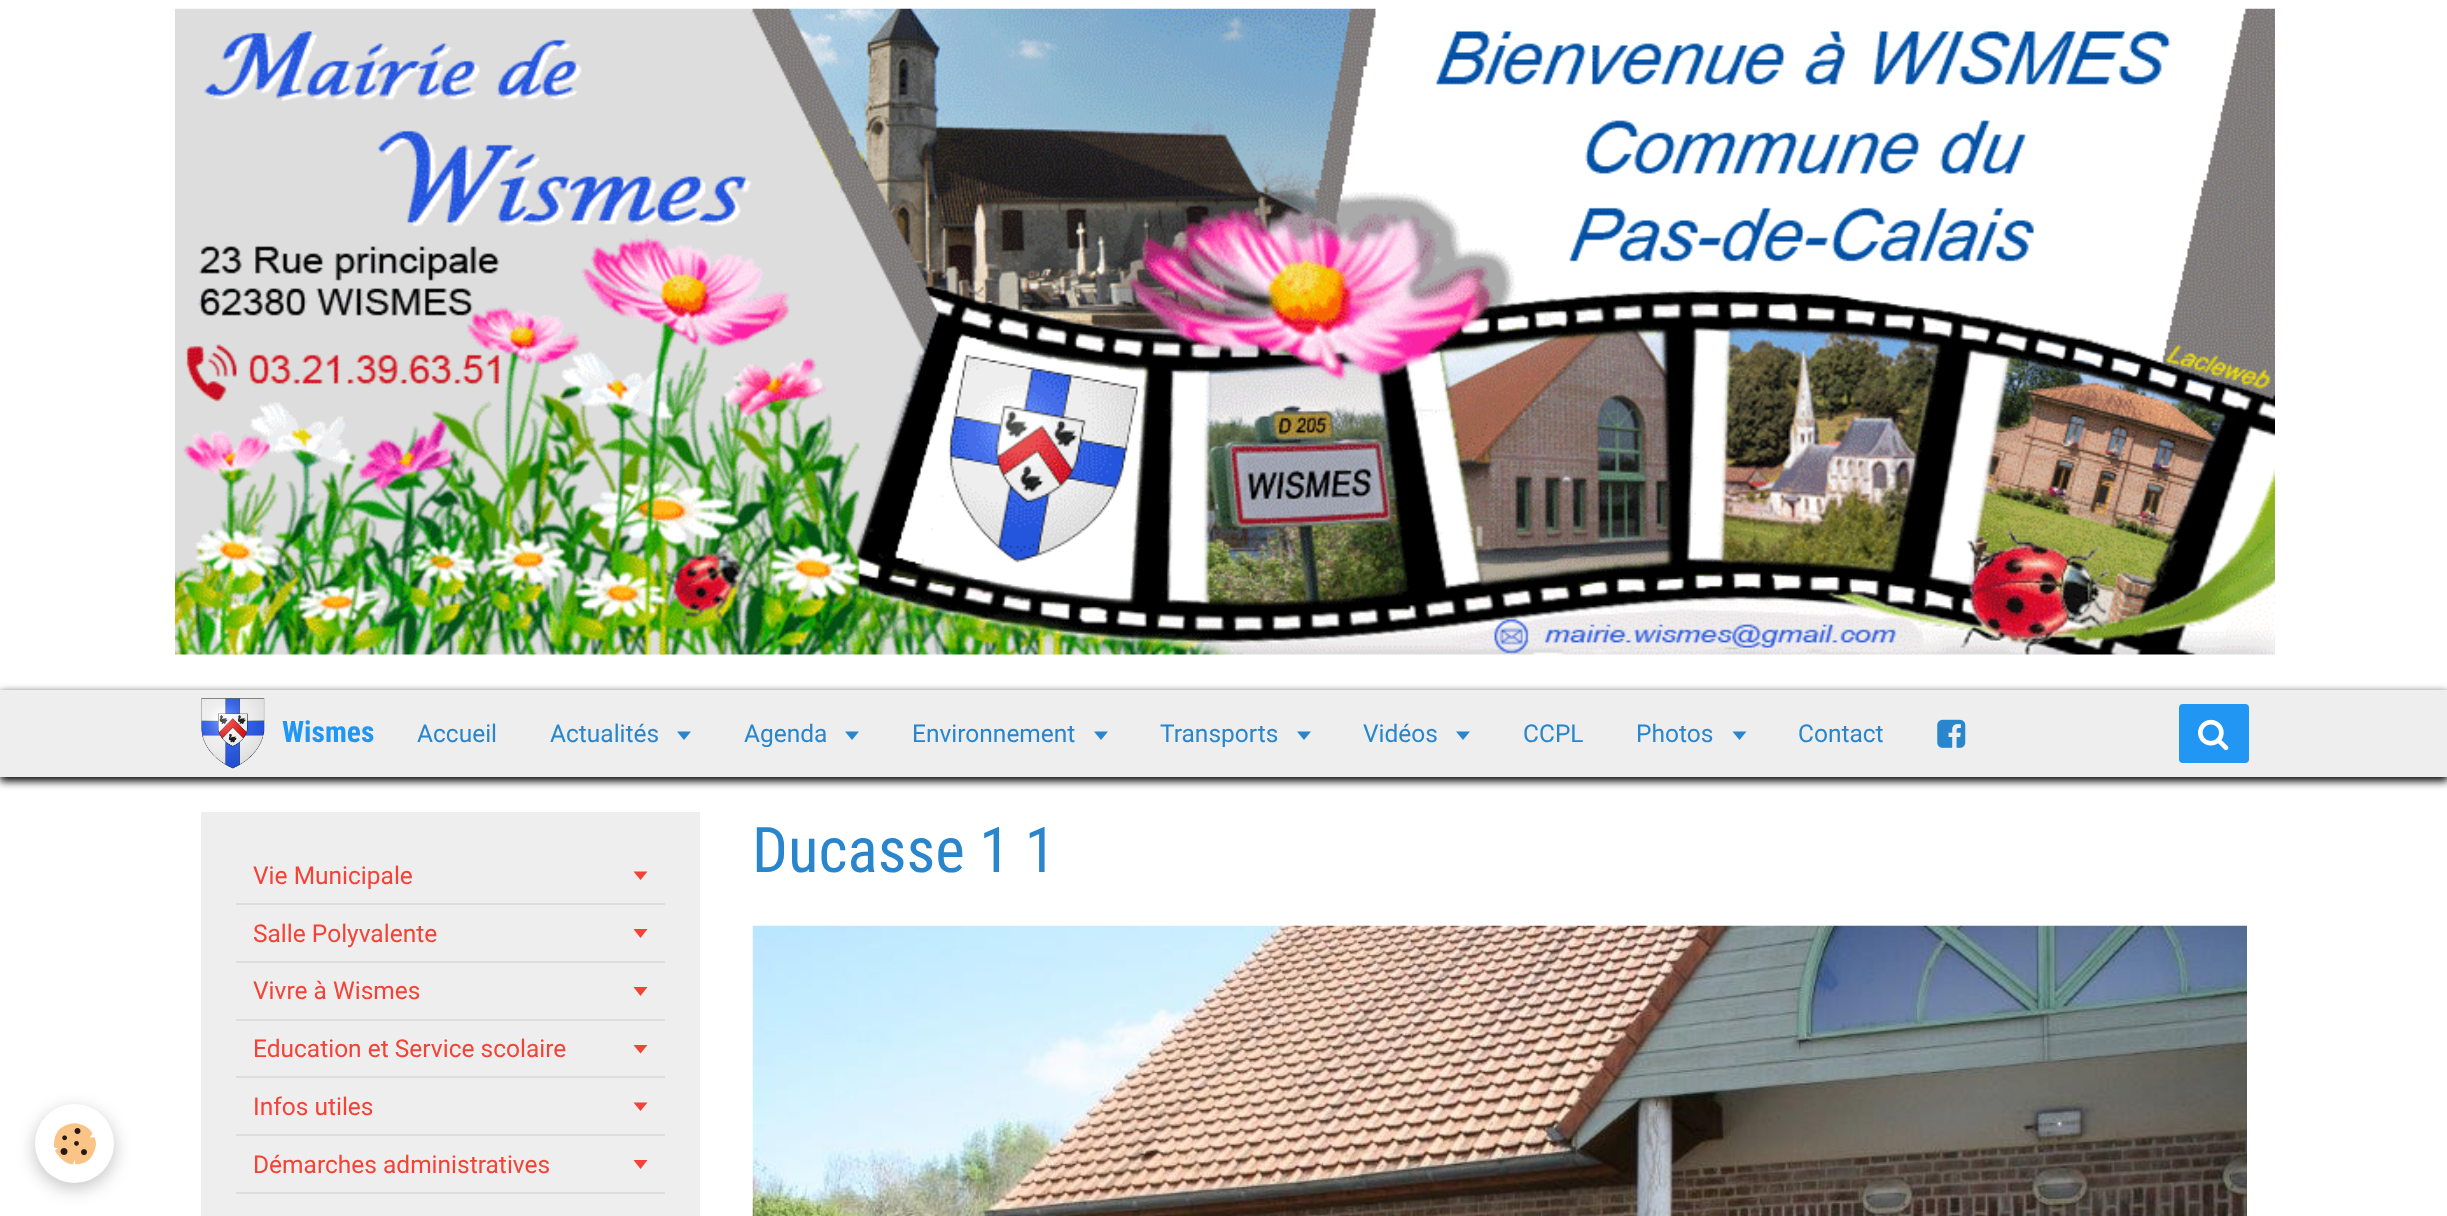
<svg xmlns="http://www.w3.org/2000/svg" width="2447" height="1216">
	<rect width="100%" height="100%" fill="#FFFFFF" />
	<image x="175" y="8" width="2100" height="647" href="assets/img1.png" />
	<rect x="0" y="693" width="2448" height="88" fill="#000000" filter="blur(4.5px)" />
	<rect x="0" y="690" width="2447" height="87" fill="#EEEEEE" />
	<image x="201" y="698" width="64" height="71" href="assets/img2.png" />
	<text x="282" y="742" font-family="Roboto Condensed" font-size="29.5" font-weight="700" fill="#2196F3">Wismes</text>
	<g font-family="Roboto" font-size="24.5" fill="#2986CC">
		<text x="417" y="742">Accueil</text>
		<text x="550" y="742">Actualités</text>
	</g>
	<path d="M677 731.5H691L684 740Z" fill="#2986CC" />
	<text x="744" y="742" font-family="Roboto" font-size="24.5" fill="#2986CC">Agenda</text>
	<path d="M845 731.5H859L852 740Z" fill="#2986CC" />
	<text x="912" y="742" font-family="Roboto" font-size="24.5" fill="#2986CC">Environnement</text>
	<path d="M1094 731.5H1108L1101 740Z" fill="#2986CC" />
	<text x="1160" y="742" font-family="Roboto" font-size="24.5" fill="#2986CC">Transports</text>
	<path d="M1297 731.5H1311L1304 740Z" fill="#2986CC" />
	<text x="1363" y="742" font-family="Roboto" font-size="24.5" fill="#2986CC">Vidéos</text>
	<path d="M1456 731.5H1470L1463 740Z" fill="#2986CC" />
	<g font-family="Roboto" font-size="24.5" fill="#2986CC">
		<text x="1523" y="742">CCPL</text>
		<text x="1636" y="742">Photos</text>
	</g>
	<path d="M1732.5 731.5H1746.5L1739.5 740Z" fill="#2986CC" />
	<text x="1798" y="742" font-family="Roboto" font-size="24.5" fill="#2986CC">Contact</text>
	<image x="1937" y="719" width="29" height="29" href="assets/img3.png" />
	<rect x="2179" y="704" width="70" height="59" rx="4" fill="#2196F3" />
	<image x="2198" y="719" width="31" height="32" href="assets/img4.png" />
	<rect x="35" y="1110" width="79" height="78" rx="39" fill="#000000" fill-opacity="0.24" filter="blur(9px)" />
	<circle cx="74.5" cy="1143.5" r="39.5" fill="#FFFFFF" />
	<image x="53" y="1123" width="43" height="42" href="assets/img5.png" />
	<text x="752" y="872" font-family="Roboto Condensed" font-size="63" fill="#2986CC">Ducasse 1 1</text>
	<image x="752" y="925" width="1495" height="291" href="assets/img6.png" />
	<rect x="201" y="812" width="499" height="404" fill="#EEEEEE" />
	<rect x="236" y="903" width="429" height="2" fill="#DDDDDD" />
	<text x="253" y="884" font-family="Roboto" font-size="24.5" fill="#F44336">Vie Municipale</text>
	<path d="M633.5 871.5H647.5L640.5 880Z" fill="#F44336" />
	<rect x="236" y="961" width="429" height="2" fill="#DDDDDD" />
	<text x="253" y="942" font-family="Roboto" font-size="24.5" fill="#F44336">Salle Polyvalente</text>
	<path d="M633.5 929H647.5L640.5 938Z" fill="#F44336" />
	<rect x="236" y="1019" width="429" height="2" fill="#DDDDDD" />
	<text x="253" y="999" font-family="Roboto" font-size="24.5" fill="#F44336">Vivre à Wismes</text>
	<path d="M633.5 987H647.5L640.5 996Z" fill="#F44336" />
	<rect x="236" y="1076" width="429" height="2" fill="#DDDDDD" />
	<text x="253" y="1057" font-family="Roboto" font-size="24.5" fill="#F44336">Education et Service scolaire</text>
	<path d="M633.5 1045H647.5L640.5 1053.5Z" fill="#F44336" />
	<rect x="236" y="1134" width="429" height="2" fill="#DDDDDD" />
	<text x="253" y="1115" font-family="Roboto" font-size="24.5" fill="#F44336">Infos utiles</text>
	<path d="M633.5 1102.5H647.5L640.5 1111Z" fill="#F44336" />
	<rect x="236" y="1192" width="429" height="2" fill="#DDDDDD" />
	<text x="253" y="1173" font-family="Roboto" font-size="24.5" fill="#F44336">Démarches administratives</text>
	<path d="M633.5 1160H647.5L640.5 1169Z" fill="#F44336" />
</svg>
